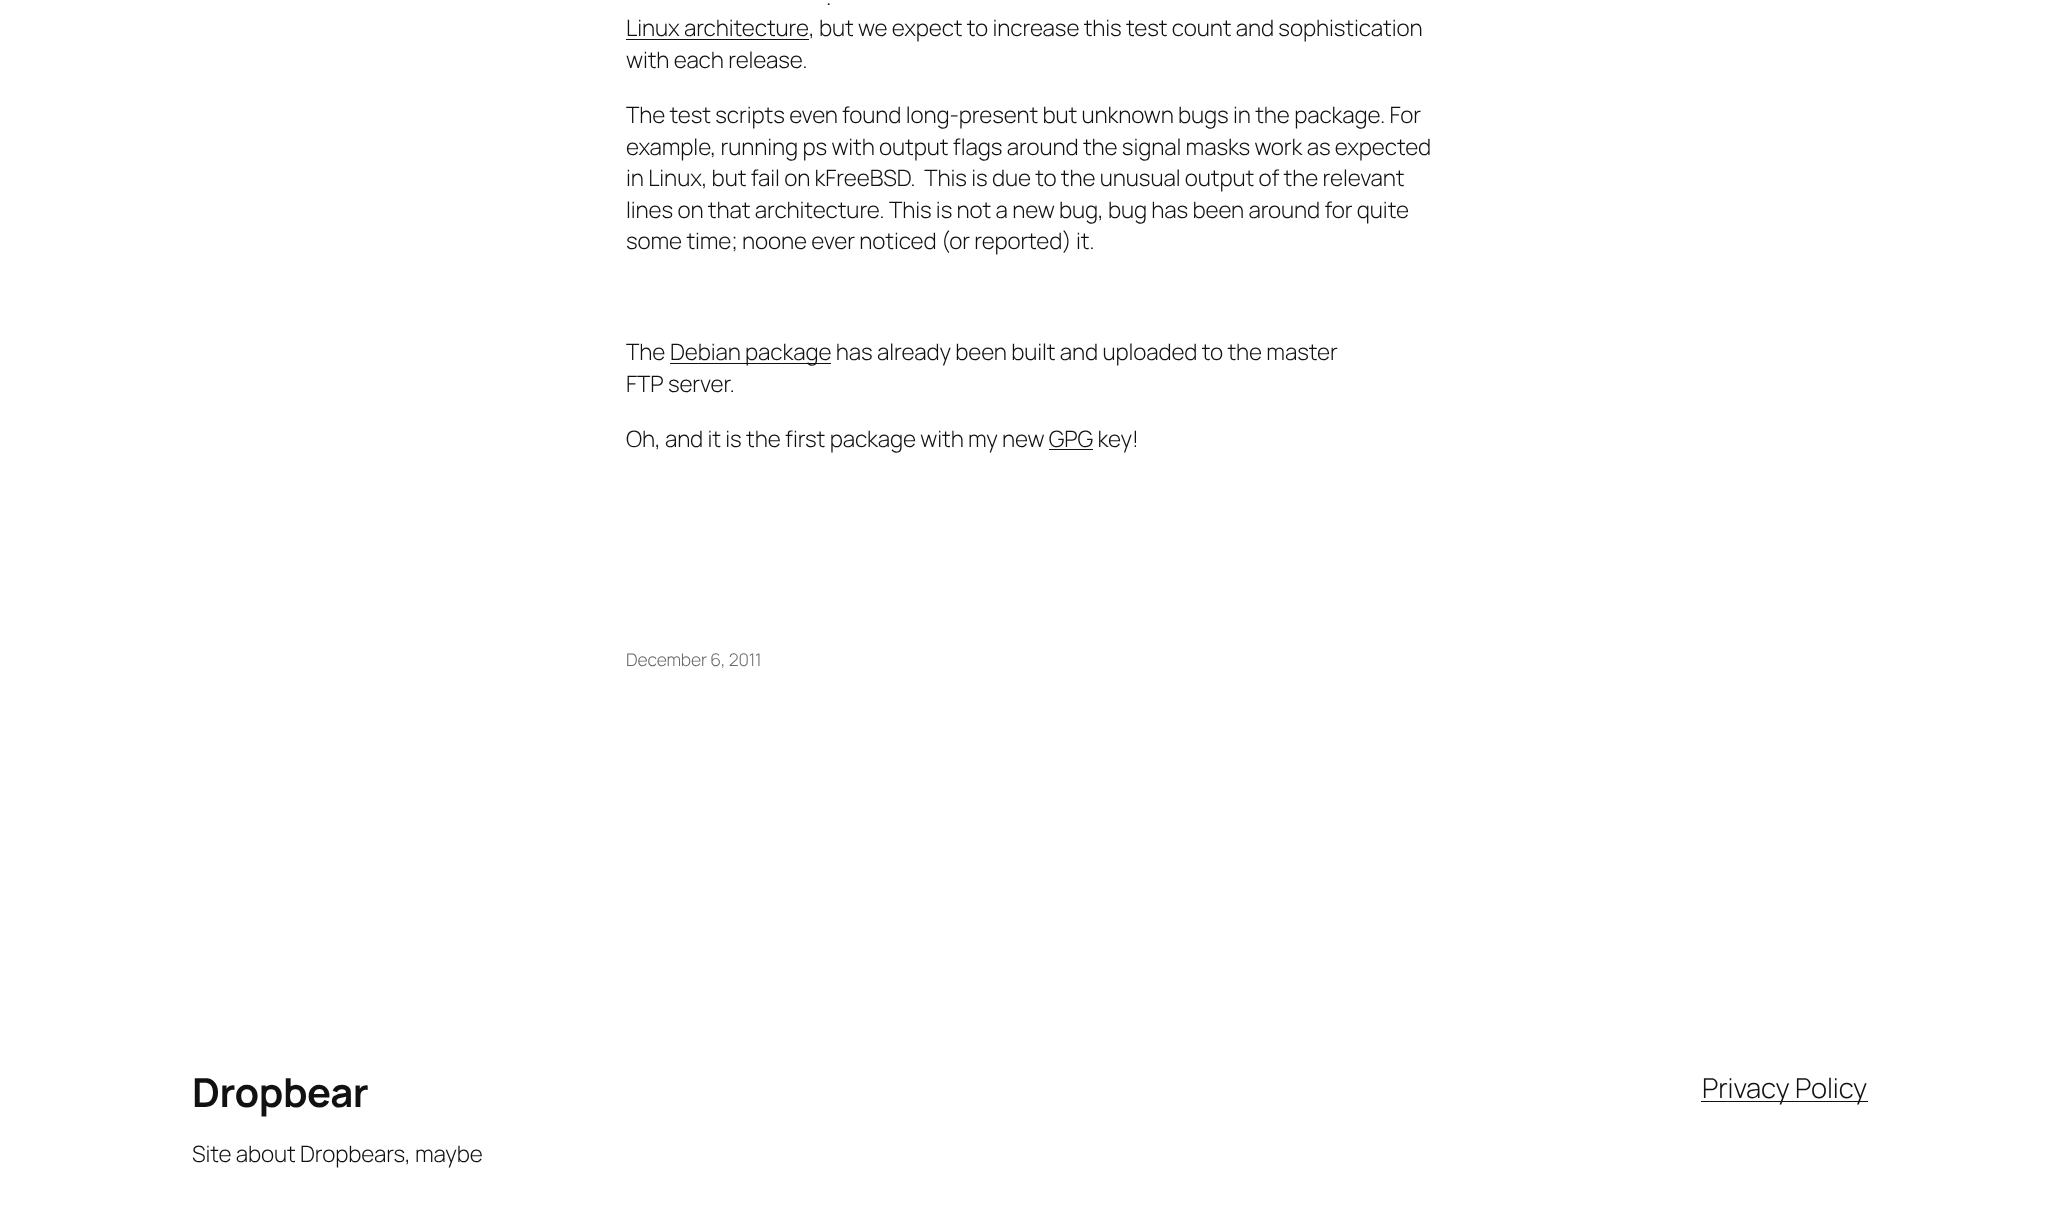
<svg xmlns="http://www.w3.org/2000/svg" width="2058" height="1212">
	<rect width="100%" height="100%" fill="#FFFFFF" />
	<g font-family="Manrope" font-size="22.5" font-weight="300" letter-spacing="-0.12" fill="#111111">
		<text x="826" y="5">.</text>
		<text x="626" y="36">Linux architecture</text>
	</g>
	<rect x="626" y="39" width="183" height="1" fill="#111111" />
	<g font-family="Manrope" font-size="22.5" font-weight="300" letter-spacing="-0.12" fill="#111111">
		<text x="809" y="36">, but we expect to increase this test count and sophistication</text>
		<text x="626" y="68">with each release.</text>
		<text x="626" y="123">The test scripts even found long-present but unknown bugs in the package. For</text>
		<text x="626" y="155">example, running ps with output flags around the signal masks work as expected</text>
		<text x="626" y="186" xml:space="preserve">in Linux, but fail on kFreeBSD.  This is due to the unusual output of the relevant</text>
		<text x="626" y="218">lines on that architecture. This is not a new bug, bug has been around for quite</text>
		<text x="626" y="249">some time; noone ever noticed (or reported) it.</text>
		<text x="626" y="360">The</text>
	</g>
	<rect x="670" y="363" width="161" height="1" fill="#111111" />
	<g font-family="Manrope" font-size="22.5" font-weight="300" letter-spacing="-0.12" fill="#111111">
		<text x="670" y="360">Debian package has already been built and uploaded to the master</text>
		<text x="626" y="392">FTP server.</text>
		<text x="626" y="447">Oh, and it is the first package with my new GPG key!</text>
	</g>
	<rect x="1049" y="449" width="44" height="1" fill="#111111" />
	<text x="626" y="666" font-family="Manrope" font-size="17.5" font-weight="300" letter-spacing="-0.12" fill="#686868">December 6, 2011</text>
	<text x="192" y="1107" font-family="Manrope" font-size="40" font-weight="700" letter-spacing="-0.5" fill="#111111">Dropbear</text>
	<text x="192" y="1162" font-family="Manrope" font-size="22.5" font-weight="300" letter-spacing="-0.12" fill="#111111">Site about Dropbears, maybe</text>
	<rect x="1701" y="1101" width="167" height="1" fill="#111111" />
	<text x="1702" y="1098" font-family="Manrope" font-size="27.5" font-weight="300" letter-spacing="-0.12" fill="#111111">Privacy Policy</text>
</svg>
